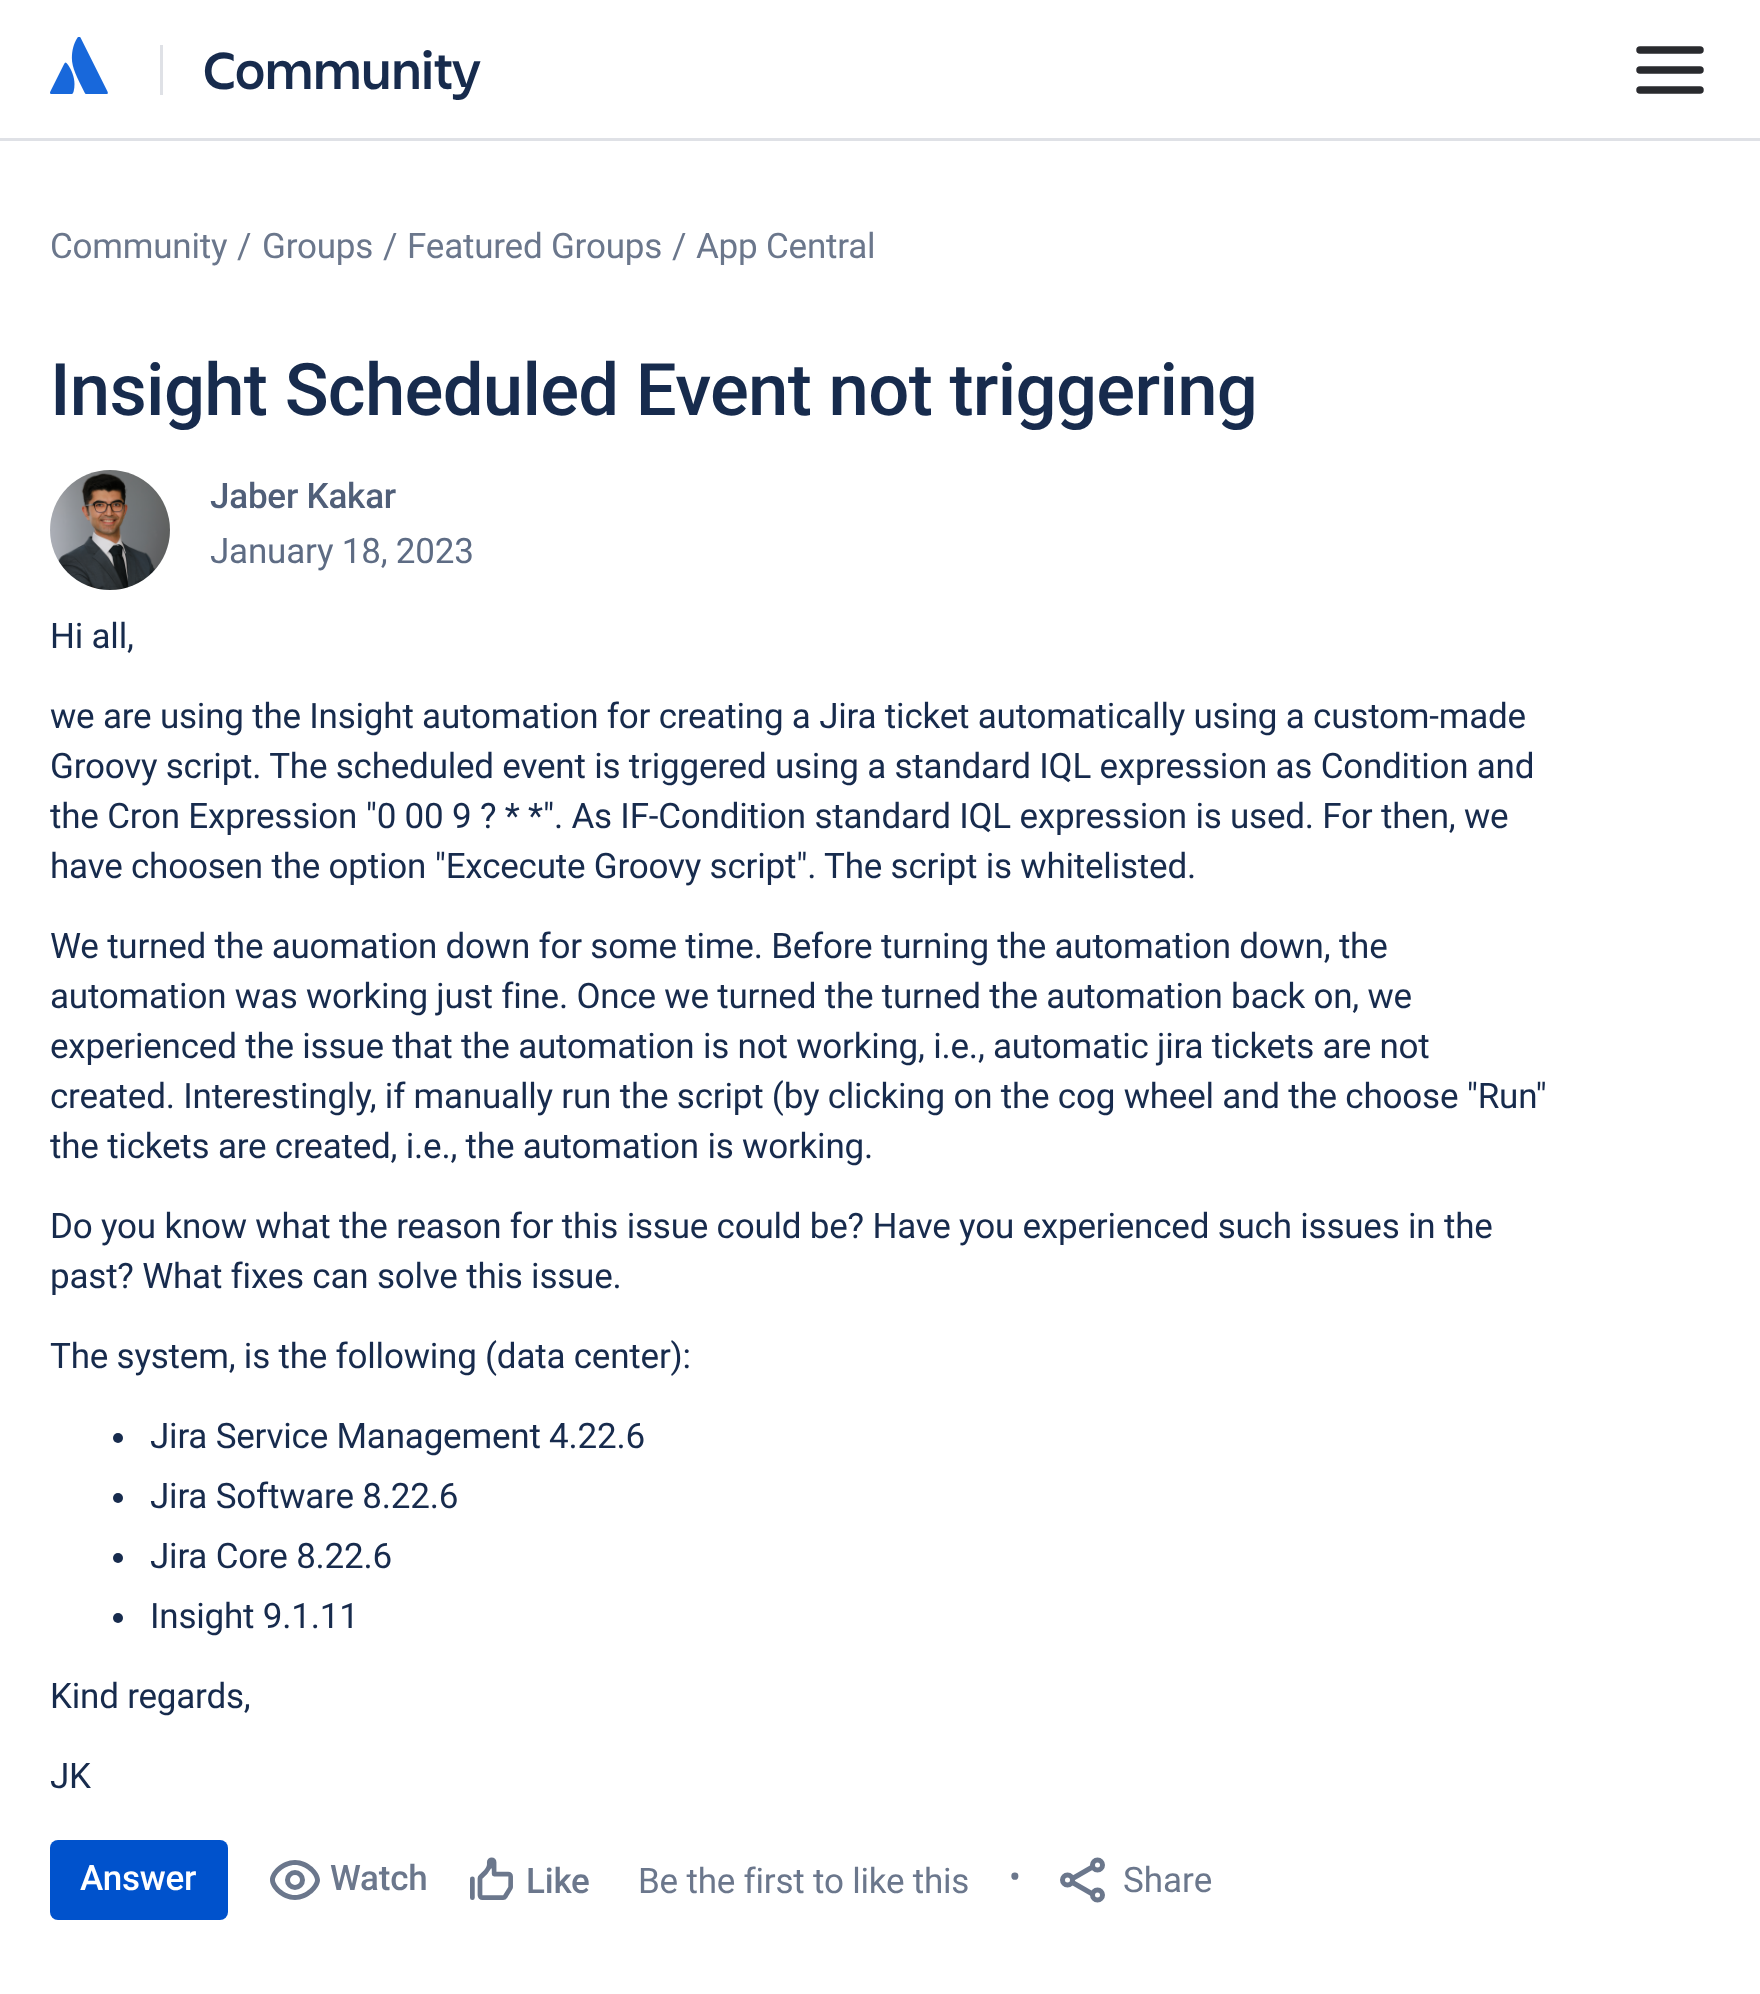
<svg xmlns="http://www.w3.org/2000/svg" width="1760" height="1994">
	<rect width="100%" height="100%" fill="#FFFFFF" />
	<rect x="0" y="138" width="1760" height="3" fill="#DFE1E6" />
	<image x="50" y="37" width="58" height="57" href="assets/img1.png" />
	<rect x="160" y="45" width="3" height="50" fill="#DFE1E6" />
	<text x="203" y="89" font-family="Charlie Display" font-size="55" font-weight="600" letter-spacing="-0.21" fill="#172B4D">Community</text>
	<image x="1636" y="46" width="68" height="48" href="assets/img2.png" />
	<g font-family="Roboto" font-size="35" letter-spacing="-0.21" fill="#6B778C">
		<text x="50" y="258">Community</text>
		<text x="237" y="258">/</text>
		<text x="262" y="258">Groups</text>
		<text x="383" y="258">/</text>
		<text x="407" y="258">Featured Groups</text>
		<text x="672" y="258">/</text>
		<text x="696" y="258">App Central</text>
	</g>
	<text x="50" y="415" font-family="Roboto" font-size="72.5" font-weight="500" letter-spacing="-0.7" fill="#172B4D">Insight Scheduled Event not triggering</text>
	<image x="50" y="470" width="120" height="120" href="assets/img3.png" />
	<text x="210" y="508" font-family="Roboto" font-size="35" font-weight="500" letter-spacing="-0.21" fill="#505F79">Jaber Kakar</text>
	<text x="210" y="563" font-family="Roboto" font-size="35" letter-spacing="-0.21" fill="#5E6C84">January 18, 2023</text>
	<g font-family="Roboto" font-size="35" letter-spacing="-0.21" fill="#172B4D">
		<text x="50" y="648">Hi all,</text>
		<text x="50" y="728">we are using the Insight automation for creating a Jira ticket automatically using a custom-made</text>
		<text x="50" y="778">Groovy script. The scheduled event is triggered using a standard IQL expression as Condition and</text>
		<text x="50" y="828">the Cron Expression "0 00 9 ? * *". As IF-Condition standard IQL expression is used. For then, we</text>
		<text x="50" y="878">have choosen the option "Excecute Groovy script". The script is whitelisted.</text>
		<text x="50" y="958">We turned the auomation down for some time. Before turning the automation down, the</text>
		<text x="50" y="1008">automation was working just fine. Once we turned the turned the automation back on, we</text>
		<text x="50" y="1058">experienced the issue that the automation is not working, i.e., automatic jira tickets are not</text>
		<text x="50" y="1108">created. Interestingly, if manually run the script (by clicking on the cog wheel and the choose "Run"</text>
		<text x="50" y="1158">the tickets are created, i.e., the automation is working.</text>
		<text x="50" y="1238">Do you know what the reason for this issue could be? Have you experienced such issues in the</text>
		<text x="50" y="1288">past? What fixes can solve this issue.</text>
		<text x="50" y="1368">The system, is the following (data center):</text>
	</g>
	<circle cx="118" cy="1438" r="5" fill="#172B4D" />
	<text x="150" y="1448" font-family="Roboto" font-size="35" letter-spacing="-0.21" fill="#172B4D">Jira Service Management 4.22.6</text>
	<circle cx="118" cy="1498" r="5" fill="#172B4D" />
	<text x="150" y="1508" font-family="Roboto" font-size="35" letter-spacing="-0.21" fill="#172B4D">Jira Software 8.22.6</text>
	<circle cx="118" cy="1558" r="5" fill="#172B4D" />
	<text x="150" y="1568" font-family="Roboto" font-size="35" letter-spacing="-0.21" fill="#172B4D">Jira Core 8.22.6</text>
	<circle cx="118" cy="1618" r="5" fill="#172B4D" />
	<g font-family="Roboto" font-size="35" letter-spacing="-0.21" fill="#172B4D">
		<text x="150" y="1628">Insight 9.1.11</text>
		<text x="50" y="1708">Kind regards,</text>
		<text x="50" y="1788">JK</text>
	</g>
	<rect x="50" y="1840" width="178" height="80" rx="8" fill="#0052CC" />
	<text x="80" y="1890" font-family="Roboto" font-size="35" font-weight="500" letter-spacing="-0.21" fill="#FFFFFF">Answer</text>
	<image x="270" y="1860" width="50" height="40" href="assets/img4.png" />
	<text x="330" y="1890" font-family="Roboto" font-size="35" font-weight="500" letter-spacing="-0.21" fill="#6B778C">Watch</text>
	<image x="470" y="1857" width="43" height="43" href="assets/img5.png" />
	<text x="526" y="1893" font-family="Roboto" font-size="35" font-weight="500" letter-spacing="-0.21" fill="#6B778C">Like</text>
	<g font-family="Roboto" font-size="35" letter-spacing="-0.21" fill="#6B778C">
		<text x="638" y="1893">Be the first to like this</text>
		<text x="1009" y="1889">•</text>
	</g>
	<image x="1060" y="1857" width="45" height="46" href="assets/img6.png" />
	<text x="1123" y="1892" font-family="Roboto" font-size="35" fill="#6B778C">Share</text>
</svg>
